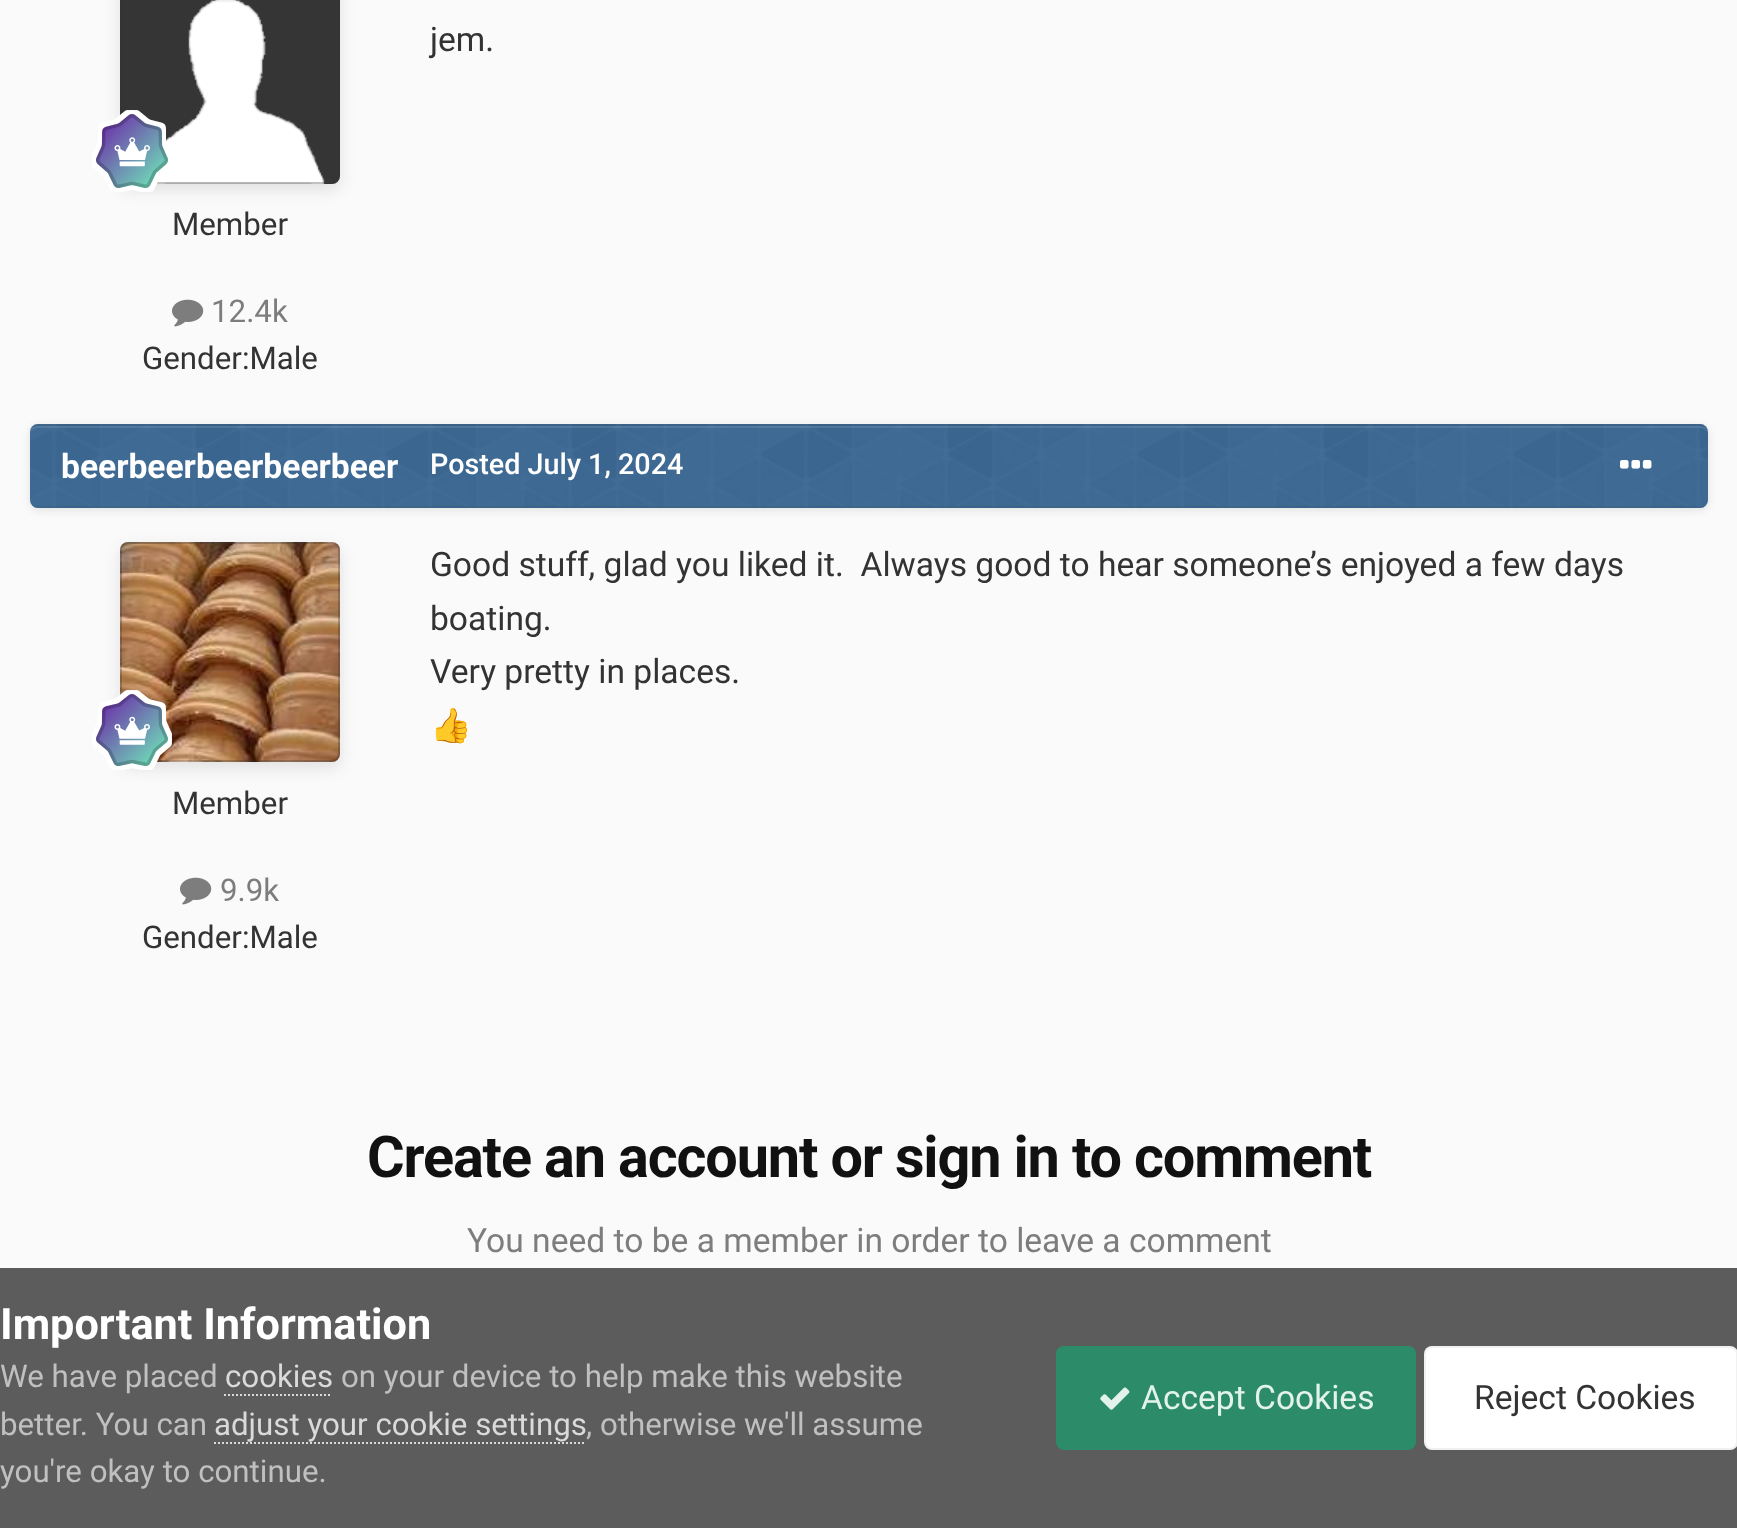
<svg xmlns="http://www.w3.org/2000/svg" width="1737" height="1528">
	<defs>
		<clipPath id="clip1"><path d="M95 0H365V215H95ZM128-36H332C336.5-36 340-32.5 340-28V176C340 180.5 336.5 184 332 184H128C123.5 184 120 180.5 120 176V-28C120-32.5 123.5-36 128-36Z" clip-rule="evenodd" /></clipPath>
		<clipPath id="clip2"><path d="M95 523H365V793H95ZM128 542H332C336.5 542 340 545.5 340 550V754C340 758.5 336.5 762 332 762H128C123.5 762 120 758.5 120 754V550C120 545.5 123.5 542 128 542Z" clip-rule="evenodd" /></clipPath>
	</defs>
	<rect width="100%" height="100%" fill="#FAFAFA" />
	<text x="430" y="51" font-family="Roboto" font-size="33.6" fill="#333333">jem.</text>
	<rect x="120" y="-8" width="220" height="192" rx="8" fill="#FFFFFF" />
	<image x="120" y="0" width="220" height="184" href="assets/img1.png" />
	<g clip-path="url(#clip1)">
		<rect x="120" y="-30" width="220" height="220" rx="8" fill="#000000" fill-opacity="0.1" filter="blur(8px)" />
	</g>
	<rect x="121" y="-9" width="218" height="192" rx="7" fill="none" stroke="#333333" stroke-opacity="0.3" stroke-width="2" />
	<image x="92" y="110" width="76" height="82" href="assets/img2.png" />
	<text x="172" y="235" font-family="Roboto" font-size="31.25" fill="#333333">Member</text>
	<image x="172" y="299" width="32" height="28" href="assets/img3.png" />
	<text x="211" y="322" font-family="Roboto" font-size="31.25" fill="#7D7D7D">12.4k</text>
	<text x="142" y="369" font-family="Roboto" font-size="31.25" fill="#333333">Gender:Male</text>
	<rect x="30" y="426" width="1678" height="84" rx="8" fill="#000000" fill-opacity="0.1" filter="blur(4px)" />
	<rect x="30" y="424" width="1678" height="84" rx="8" fill="#3C6994" />
	<image x="30" y="424" width="1678" height="84" href="assets/img4.png" />
	<path d="M38 428H1700C1704 428 1708 431 1708 434C1708 429 1705 426 1700 426H38C33 426 30 429 30 434C30 431 34 428 38 428Z" fill="#FFFFFF" fill-opacity="0.1" />
	<rect x="34" y="424" width="1670" height="2" fill="#333333" fill-opacity="0.1" />
	<rect x="34" y="506" width="1670" height="2" fill="#333333" fill-opacity="0.1" />
	<text x="61" y="478" font-family="Roboto" font-size="33.6" font-weight="700" fill="#FFFFFF">beerbeerbeerbeerbeer</text>
	<rect x="120" y="542" width="220" height="220" rx="8" fill="#FFFFFF" />
	<image x="120" y="542" width="220" height="220" href="assets/img5.png" />
	<g clip-path="url(#clip2)">
		<rect x="120" y="548" width="220" height="220" rx="8" fill="#000000" fill-opacity="0.1" filter="blur(8px)" />
	</g>
	<rect x="121" y="543" width="218" height="218" rx="7" fill="none" stroke="#333333" stroke-opacity="0.3" stroke-width="2" />
	<image x="92" y="690" width="80" height="80" href="assets/img6.png" />
	<text x="172" y="814" font-family="Roboto" font-size="31.25" fill="#333333">Member</text>
	<image x="180" y="877" width="32" height="28" href="assets/img3.png" />
	<text x="220" y="901" font-family="Roboto" font-size="31.25" fill="#7D7D7D">9.9k</text>
	<text x="142" y="948" font-family="Roboto" font-size="31.25" fill="#333333">Gender:Male</text>
	<text x="430" y="474" font-family="Roboto" font-size="28.75" font-weight="500" fill="#FFFFFF">Posted July 1, 2024</text>
	<image x="1620" y="460" width="32" height="9" href="assets/img7.png" />
	<g font-family="Roboto" font-size="33.6" fill="#333333">
		<text x="430" y="576" xml:space="preserve">Good stuff, glad you liked it.  Always good to hear someone’s enjoyed a few days</text>
		<text x="430" y="630">boating.</text>
		<text x="430" y="683">Very pretty in places.</text>
	</g>
	<text x="430" y="737" font-family="Noto Color Emoji" font-size="33.6" fill="#333333">👍</text>
	<text x="367" y="1177" font-family="Roboto" font-size="57.6" font-weight="700" letter-spacing="-1.15" fill="#111111">Create an account or sign in to comment</text>
	<text x="467" y="1252" font-family="Roboto" font-size="33.6" fill="#7D7D7D">You need to be a member in order to leave a comment</text>
	<rect x="0" y="1268" width="1737" height="260" fill="#5C5C5C" />
	<text x="0" y="1339" font-family="Roboto" font-size="43.25" font-weight="700" fill="#FFFFFF">Important Information</text>
	<text x="0" y="1387" font-family="Roboto" font-size="31.25" fill="#C0C0C0">We have placed</text>
	<text x="225" y="1387" font-family="Roboto" font-size="31.25" fill="#DADADA">cookies</text>
	<path d="M224 1395H332" fill="none" stroke="#DADADA" stroke-width="2" stroke-dasharray="2 2" />
	<g font-family="Roboto" font-size="31.25" fill="#C0C0C0">
		<text x="341" y="1387">on your device to help make this website</text>
		<text x="0" y="1435">better. You can</text>
	</g>
	<text x="214" y="1435" font-family="Roboto" font-size="31.25" fill="#DADADA">adjust your cookie settings</text>
	<path d="M214 1443H586" fill="none" stroke="#DADADA" stroke-width="2" stroke-dasharray="2 2" />
	<g font-family="Roboto" font-size="31.25" fill="#C0C0C0">
		<text x="586" y="1435">, otherwise we'll assume</text>
		<text x="0" y="1482">you're okay to continue.</text>
	</g>
	<rect x="1056" y="1346" width="360" height="104" rx="8" fill="#2C8C69" />
	<image x="1100" y="1387" width="30" height="23" href="assets/img8.png" />
	<text x="1141" y="1409" font-family="Roboto" font-size="33.6" fill="#E3F3EC">Accept Cookies</text>
	<rect x="1424" y="1346" width="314" height="104" rx="8" fill="#FFFFFF" />
	<rect x="1425" y="1347" width="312" height="102" rx="7" fill="none" stroke="#333333" stroke-opacity="0.07" stroke-width="2" />
	<text x="1474" y="1409" font-family="Roboto" font-size="33.6" fill="#333333">Reject Cookies</text>
</svg>
